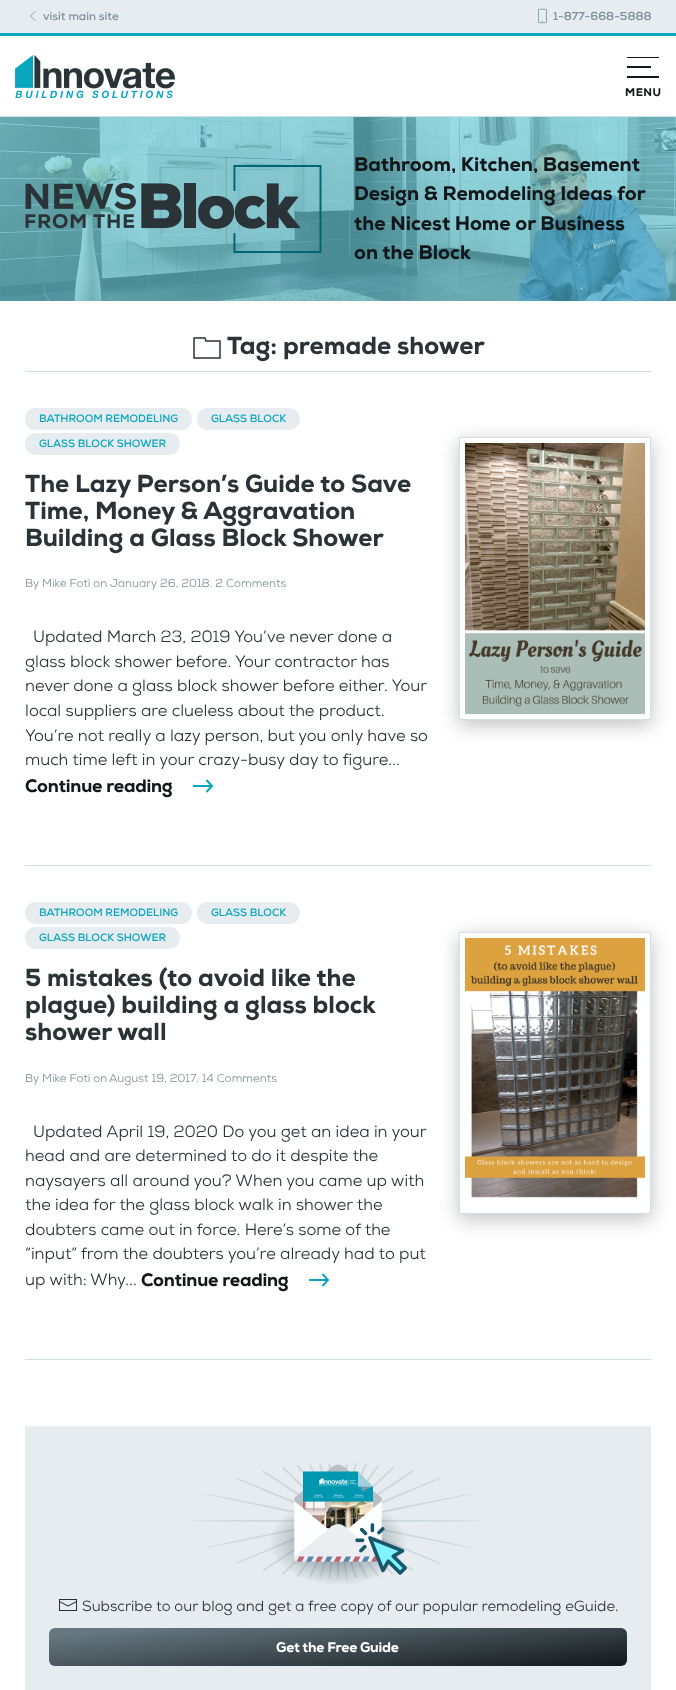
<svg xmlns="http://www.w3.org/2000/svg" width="676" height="1690">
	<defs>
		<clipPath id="clip1"><path d="M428 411H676V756H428ZM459 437H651V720H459Z" clip-rule="evenodd" /></clipPath>
		<clipPath id="clip2"><path d="M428 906H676V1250H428ZM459 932H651V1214H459Z" clip-rule="evenodd" /></clipPath>
		<linearGradient id="g1" gradientUnits="userSpaceOnUse" x1="343" y1="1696" x2="333" y2="1598"><stop offset="0" stop-color="#12171A" /><stop offset="0.9" stop-color="#667780" /></linearGradient>
	</defs>
	<rect width="100%" height="100%" fill="#FFFFFF" />
	<rect x="0" y="0" width="676" height="33" fill="#E6ECEF" />
	<path d="M35.5 21L30.5 16L35.5 11" fill="none" stroke="#7D9099" stroke-width="0.8" />
	<text x="43" y="20" font-family="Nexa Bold" font-size="11.5" font-weight="700" fill="#7D9099">visit main site</text>
	<image x="538" y="8" width="9" height="16" href="assets/img1.png" />
	<text x="553" y="20" font-family="Nexa Bold" font-size="11.5" font-weight="700" fill="#7D9099">1-877-668-5888</text>
	<rect x="0" y="33" width="676" height="3" fill="#0AA6BF" />
	<rect x="0" y="116" width="676" height="1" fill="#D1DFE6" />
	<image x="15" y="55" width="160" height="43" href="assets/img2.png" />
	<rect x="627" y="57" width="32" height="1" fill="#12171A" />
	<rect x="627" y="66" width="24" height="2" fill="#12171A" />
	<rect x="627" y="76" width="32" height="2" fill="#12171A" />
	<text x="625" y="96" font-family="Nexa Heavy" font-size="11" font-weight="900" letter-spacing="0.5" fill="#12171A">MENU</text>
	<image x="0" y="117" width="676" height="184" href="assets/img3.png" />
	<image x="25" y="165" width="297" height="88" href="assets/img4.png" />
	<g font-family="Nexa Heavy" font-size="19.7" font-weight="900" fill="#12171A">
		<text x="354" y="171">Bathroom, Kitchen, Basement</text>
		<text x="354" y="200">Design &amp; Remodeling Ideas for</text>
		<text x="354" y="230">the Nicest Home or Business</text>
		<text x="354" y="259">on the Block</text>
	</g>
	<rect x="25" y="371" width="626" height="1" fill="#D1DFE6" />
	<path d="M206 341L205 338H194V358H220V341Z" fill="none" stroke="#2A3338" stroke-width="1.5" />
	<text x="227" y="354" font-family="Nexa Heavy" font-size="24.6" font-weight="900" fill="#2A3338">Tag: premade shower</text>
	<rect x="25" y="865" width="626" height="1" fill="#D1DFE6" />
	<rect x="25" y="408" width="167" height="22" rx="11" fill="#E6ECEF" />
	<text x="39" y="422" font-family="Nexa Bold" font-size="10.6" font-weight="700" fill="#0AA6BF">BATHROOM REMODELING</text>
	<rect x="197" y="408" width="103" height="22" rx="11" fill="#E6ECEF" />
	<text x="211" y="422" font-family="Nexa Bold" font-size="10.6" font-weight="700" fill="#0AA6BF">GLASS BLOCK</text>
	<rect x="25" y="433" width="155" height="22" rx="11" fill="#E6ECEF" />
	<text x="39" y="447" font-family="Nexa Bold" font-size="10.6" font-weight="700" fill="#0AA6BF">GLASS BLOCK SHOWER</text>
	<g font-family="Nexa Heavy" font-size="24.6" font-weight="900" fill="#2A3338">
		<text x="25" y="492">The Lazy Person’s Guide to Save</text>
		<text x="25" y="519">Time, Money &amp; Aggravation</text>
		<text x="25" y="546">Building a Glass Block Shower</text>
	</g>
	<text x="25" y="587" font-family="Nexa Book" font-size="11.5" fill="#7D9099">By Mike Foti on January 26, 2018. 2 Comments</text>
	<g font-family="Nexa Book" font-size="16.4" fill="#2A3338">
		<text x="33" y="642">Updated March 23, 2019 You’ve never done a</text>
		<text x="25" y="667">glass block shower before. Your contractor has</text>
		<text x="25" y="691">never done a glass block shower before either. Your</text>
		<text x="25" y="716">local suppliers are clueless about the product.</text>
		<text x="25" y="741">You’re not really a lazy person, but you only have so</text>
		<text x="25" y="765">much time left in your crazy-busy day to figure...</text>
	</g>
	<text x="25" y="792" font-family="Nexa Heavy" font-size="18" font-weight="900" letter-spacing="-0.25" fill="#12171A">Continue reading</text>
	<path d="M206.5 780L212 786L206.5 792" fill="none" stroke="#0AA6BF" stroke-width="2" />
	<rect x="193" y="785" width="18" height="2" fill="#0AA6BF" />
	<g clip-path="url(#clip1)">
		<rect x="459" y="442" width="192" height="283" fill="#000000" fill-opacity="0.25" filter="blur(10px)" />
	</g>
	<rect x="459.5" y="437.5" width="191" height="282" fill="none" stroke="#D1DFE6" />
	<image x="465" y="443" width="180" height="271" href="assets/img5.png" />
	<rect x="25" y="1359" width="626" height="1" fill="#D1DFE6" />
	<rect x="25" y="902" width="167" height="22" rx="11" fill="#E6ECEF" />
	<text x="39" y="916" font-family="Nexa Bold" font-size="10.6" font-weight="700" fill="#0AA6BF">BATHROOM REMODELING</text>
	<rect x="197" y="902" width="103" height="22" rx="11" fill="#E6ECEF" />
	<text x="211" y="916" font-family="Nexa Bold" font-size="10.6" font-weight="700" fill="#0AA6BF">GLASS BLOCK</text>
	<rect x="25" y="927" width="155" height="22" rx="11" fill="#E6ECEF" />
	<text x="39" y="941" font-family="Nexa Bold" font-size="10.6" font-weight="700" fill="#0AA6BF">GLASS BLOCK SHOWER</text>
	<g font-family="Nexa Heavy" font-size="24.6" font-weight="900" fill="#2A3338">
		<text x="25" y="986">5 mistakes (to avoid like the</text>
		<text x="25" y="1013">plague) building a glass block</text>
		<text x="25" y="1040">shower wall</text>
	</g>
	<g font-family="Nexa Book" font-size="11.5" fill="#7D9099">
		<text x="25" y="1082">By Mike Foti on</text>
		<text x="109" y="1082">August 19, 2017</text>
		<text x="196" y="1082">. 14 Comments</text>
	</g>
	<g font-family="Nexa Book" font-size="16.4" fill="#2A3338">
		<text x="33" y="1137">Updated April 19, 2020 Do you get an idea in your</text>
		<text x="25" y="1161">head and are determined to do it despite the</text>
		<text x="25" y="1186">naysayers all around you? When you came up with</text>
		<text x="25" y="1210">the idea for the glass block walk in shower the</text>
		<text x="25" y="1235">doubters came out in force. Here’s some of the</text>
		<text x="25" y="1259">“input” from the doubters you’re already had to put</text>
		<text x="25" y="1285">up with:</text>
		<text x="90" y="1285">Why...</text>
	</g>
	<text x="141" y="1286" font-family="Nexa Heavy" font-size="18" font-weight="900" letter-spacing="-0.25" fill="#12171A">Continue reading</text>
	<path d="M322.5 1274L328 1280L322.5 1286" fill="none" stroke="#0AA6BF" stroke-width="2" />
	<rect x="309" y="1279" width="18" height="2" fill="#0AA6BF" />
	<g clip-path="url(#clip2)">
		<rect x="459" y="937" width="192" height="282" fill="#000000" fill-opacity="0.25" filter="blur(10px)" />
	</g>
	<rect x="459.5" y="932.5" width="191" height="281" fill="none" stroke="#D1DFE6" />
	<image x="465" y="938" width="180" height="260" href="assets/img6.png" />
	<rect x="25" y="1426" width="626" height="264" fill="#E6ECEF" />
	<image x="190" y="1463" width="296" height="121" href="assets/img7.png" />
	<image x="59" y="1599" width="18" height="12" href="assets/img8.png" />
	<text x="82" y="1611" font-family="Nexa Book" font-size="14.75" fill="#2A3338">Subscribe to our blog and get a free copy of our popular remodeling eGuide.</text>
	<rect x="49" y="1628" width="578" height="38" rx="6" fill="url(#g1)" />
	<text x="276" y="1652" font-family="Nexa Heavy" font-size="14" font-weight="900" letter-spacing="-0.25" fill="#FFFFFF">Get the Free Guide</text>
</svg>
